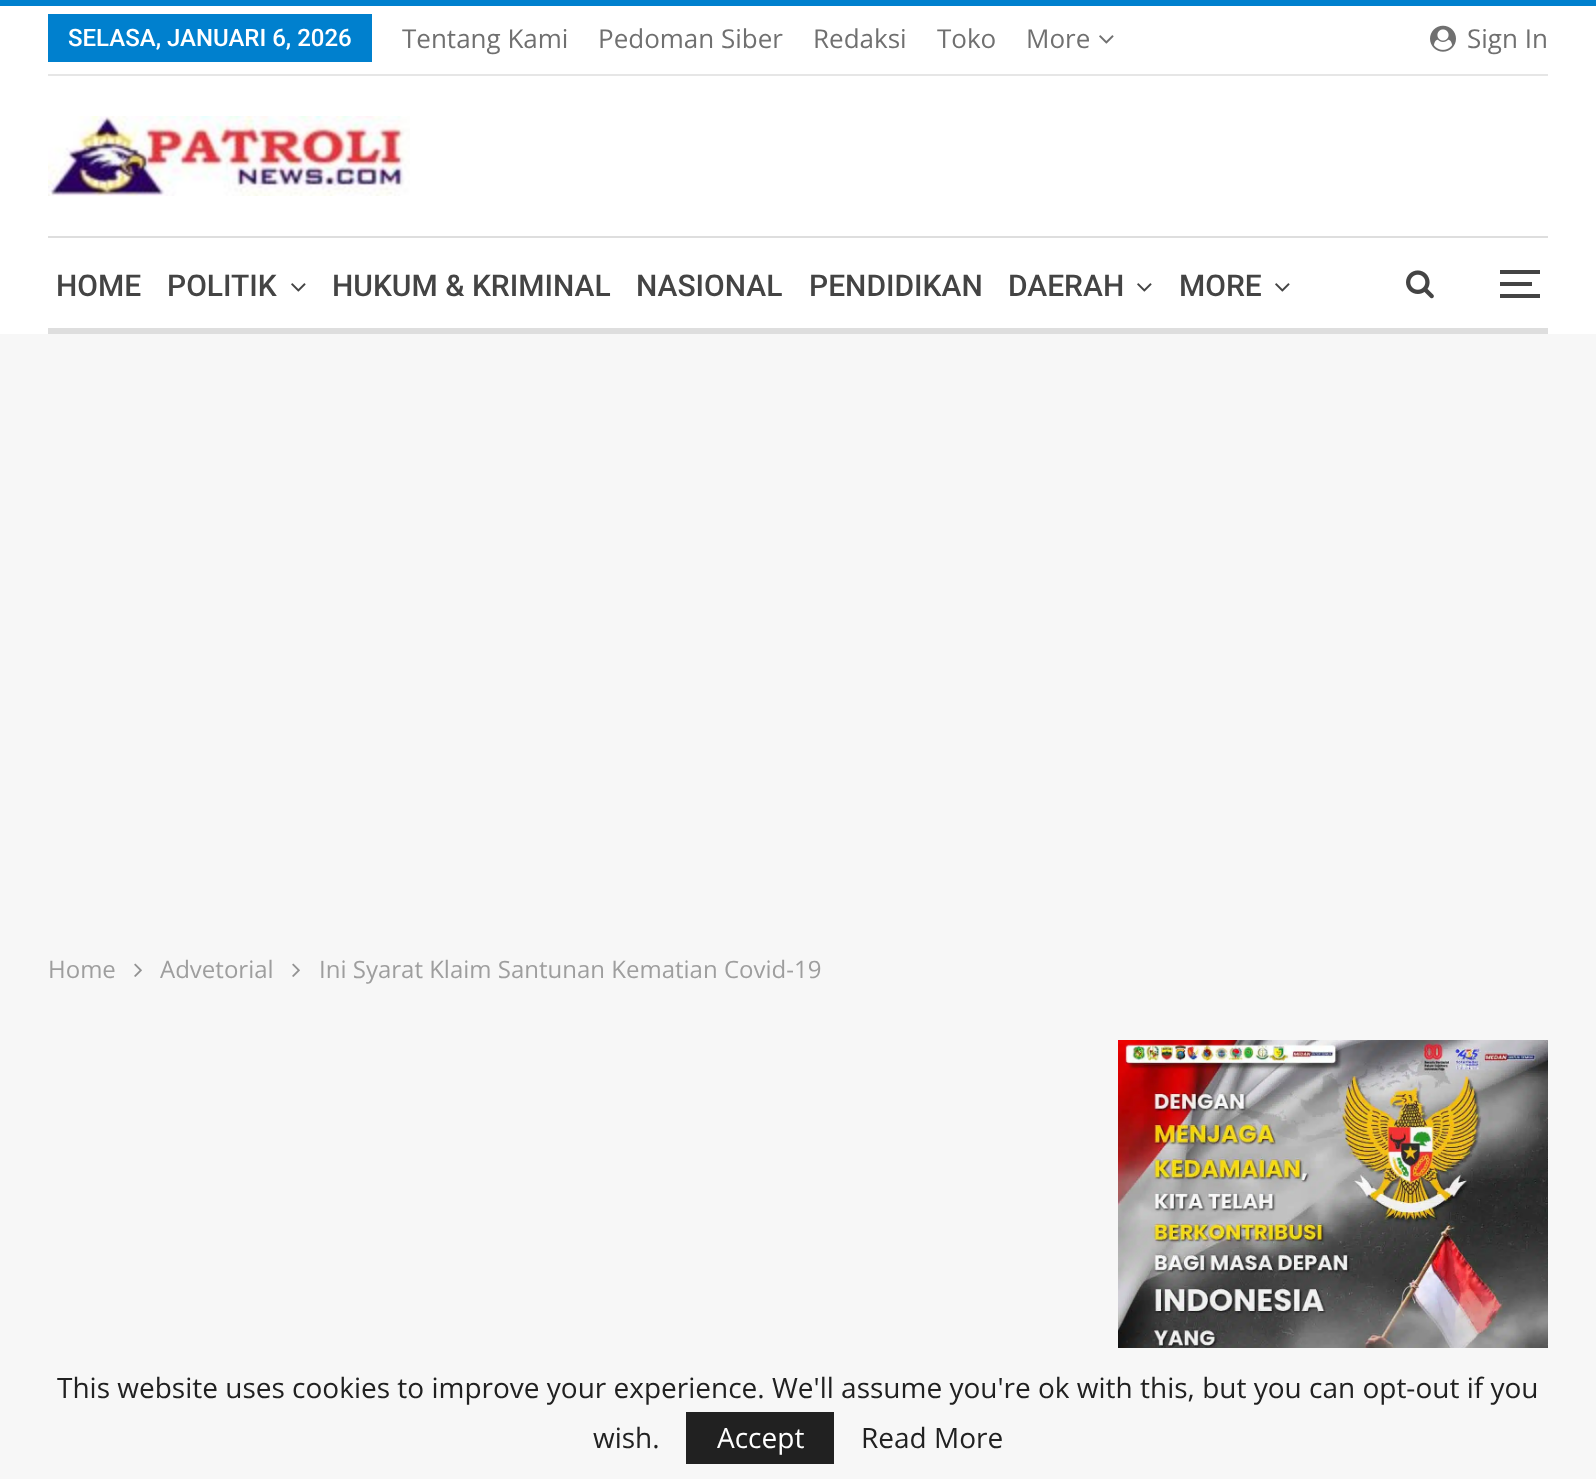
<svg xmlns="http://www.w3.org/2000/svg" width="1596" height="1479">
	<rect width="100%" height="100%" fill="#F7F7F7" />
	<rect x="0" y="0" width="1596" height="6" fill="#0080CE" />
	<rect x="0" y="6" width="1596" height="328" fill="#FFFFFF" />
	<rect x="48" y="74" width="1500" height="2" fill="#E6E6E6" />
	<rect x="48" y="14" width="324" height="48" fill="#0080CE" />
	<text x="68" y="46" font-family="Roboto" font-size="24" font-weight="500" fill="#FFFFFF">SELASA, JANUARI 6, 2026</text>
	<g font-family="Open Sans" font-size="26" fill="#707070">
		<text x="402" y="48">Tentang Kami</text>
		<text x="598" y="48">Pedoman Siber</text>
		<text x="813" y="48">Redaksi</text>
		<text x="937" y="48">Toko</text>
		<text x="1026" y="48">More</text>
	</g>
	<image x="1099" y="35" width="15" height="9" href="assets/img1.png" />
	<image x="1430" y="25" width="26" height="27" href="assets/img2.png" />
	<text x="1467" y="48" font-family="Open Sans" font-size="26" fill="#707070">Sign In</text>
	<image x="48" y="116" width="362" height="80" href="assets/img3.png" />
	<rect x="48" y="236" width="1500" height="2" fill="#DEDEDE" />
	<rect x="48" y="328" width="1500" height="6" fill="#DEDEDE" />
	<g font-family="Roboto" font-size="30" font-weight="500" fill="#444444">
		<text x="56" y="296">HOME</text>
		<text x="167" y="296">POLITIK</text>
	</g>
	<image x="291" y="283" width="15" height="9" href="assets/img4.png" />
	<g font-family="Roboto" font-size="30" font-weight="500" fill="#444444">
		<text x="332" y="296">HUKUM &amp; KRIMINAL</text>
		<text x="636" y="296">NASIONAL</text>
		<text x="809" y="296">PENDIDIKAN</text>
		<text x="1008" y="296">DAERAH</text>
	</g>
	<image x="1137" y="283" width="15" height="9" href="assets/img4.png" />
	<text x="1179" y="296" font-family="Roboto" font-size="30" font-weight="500" fill="#444444">MORE</text>
	<image x="1275" y="283" width="15" height="9" href="assets/img4.png" />
	<image x="1406" y="270" width="28" height="29" href="assets/img5.png" />
	<rect x="1500" y="282" width="32" height="4" fill="#444444" />
	<rect x="1500" y="270" width="40" height="4" fill="#444444" />
	<rect x="1500" y="294" width="40" height="4" fill="#444444" />
	<text x="48" y="978" font-family="Open Sans" font-size="24" fill="#9E9E9E">Home</text>
	<image x="134" y="963" width="8" height="14" href="assets/img6.png" />
	<text x="160" y="978" font-family="Open Sans" font-size="24" fill="#9E9E9E">Advetorial</text>
	<image x="292" y="963" width="8" height="14" href="assets/img6.png" />
	<text x="319" y="978" font-family="Open Sans" font-size="24" fill="#9E9E9E">Ini Syarat Klaim Santunan Kematian Covid-19</text>
	<image x="1118" y="1040" width="430" height="308" href="assets/img7.png" />
	<g font-family="Open Sans" font-size="28" fill="#212121">
		<text x="57" y="1398">This website uses cookies to improve your experience. We'll assume you're ok with this, but you can opt-out if you</text>
		<text x="593" y="1448">wish.</text>
	</g>
	<rect x="686" y="1412" width="148" height="52" fill="#212121" />
	<text x="717" y="1448" font-family="Open Sans" font-size="28" fill="#FFFFFF">Accept</text>
	<text x="861" y="1448" font-family="Open Sans" font-size="28" fill="#212121">Read More</text>
</svg>
